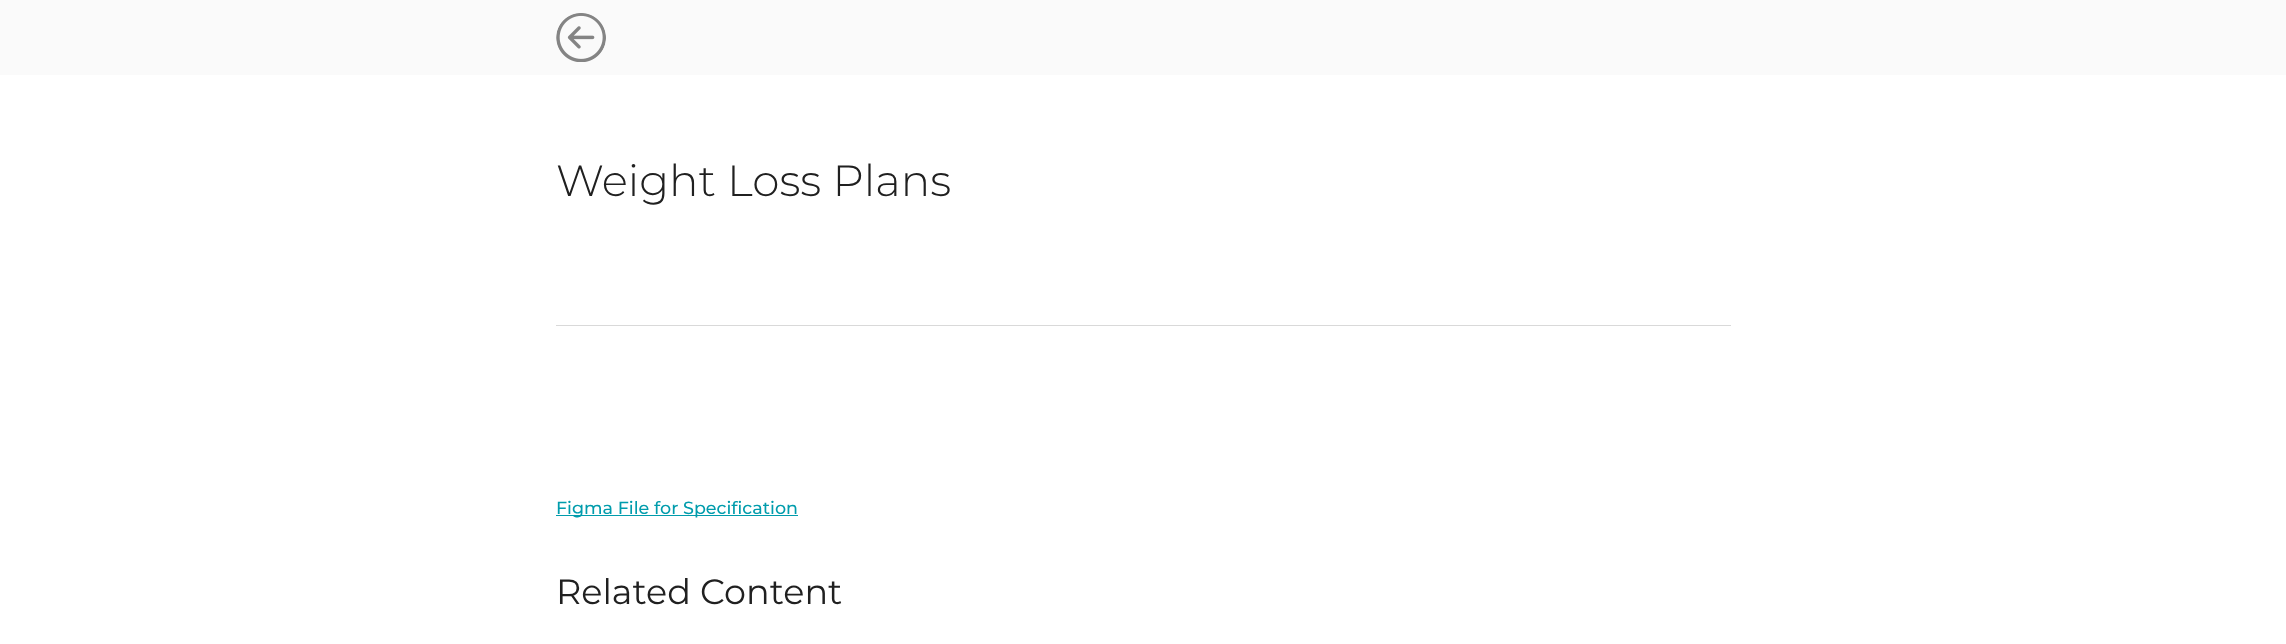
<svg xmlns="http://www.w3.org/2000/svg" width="2286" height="644">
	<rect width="100%" height="100%" fill="#FFFFFF" />
	<rect x="0" y="0" width="2286" height="75" fill="#FAFAFA" />
	<image x="556" y="13" width="50" height="49" href="assets/img1.png" />
	<text x="556" y="196" font-family="Montserrat" font-size="43.75" font-weight="300" fill="#202020">Weight Loss Plans</text>
	<rect x="556" y="325" width="1175" height="1" fill="#D9D9D9" />
	<rect x="556" y="515" width="242" height="1" fill="#009CAC" />
	<text x="556" y="514" font-family="Montserrat" font-size="17.5" font-weight="500" fill="#009CAC">Figma File for Specification</text>
	<text x="556" y="604" font-family="Montserrat" font-size="35" fill="#202020">Related Content</text>
</svg>
